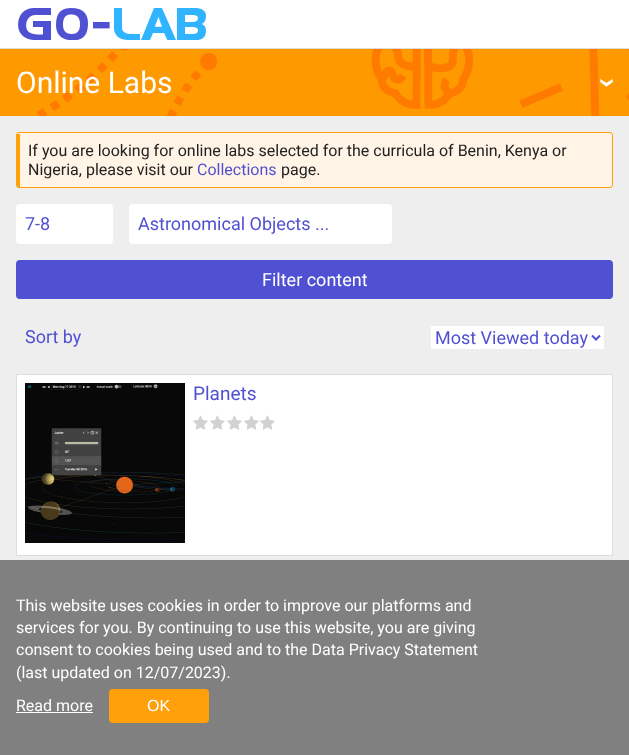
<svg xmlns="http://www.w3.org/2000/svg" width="629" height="755">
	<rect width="100%" height="100%" fill="#EEEEEE" />
	<rect x="0" y="0" width="629" height="48" fill="#FFFFFF" />
	<rect x="0" y="48" width="629" height="1" fill="#DDDDDD" />
	<image x="18" y="8" width="188" height="32" href="assets/img1.png" />
	<image x="0" y="49" width="629" height="67" href="assets/img2.png" />
	<text x="16" y="93" font-family="Roboto" font-size="30" fill="#FFFFFF">Online Labs</text>
	<text x="598" y="78" transform="rotate(90 598 78)" font-family="Roboto" font-size="30" font-weight="700" fill="#FFFFFF">›</text>
	<path d="M20 133H610C611 133 612 134 612 135V185C612 186 611 187 610 187H20Z" fill="#FFF4E6" />
	<rect x="16.5" y="132.5" width="596" height="55" rx="2.5" fill="none" stroke="#FFA00A" />
	<rect x="17" y="134" width="3" height="53" fill="#FFA00A" />
	<g font-family="Roboto" font-size="16" fill="#222222">
		<text x="28" y="156">If you are looking for online labs selected for the curricula of Benin, Kenya or</text>
		<text x="28" y="175">Nigeria, please visit our</text>
	</g>
	<text x="197" y="175" font-family="Roboto" font-size="16" fill="#5050D2">Collections</text>
	<text x="281" y="175" font-family="Roboto" font-size="16" fill="#222222">page.</text>
	<rect x="16" y="204" width="97" height="40" rx="4" fill="#FFFFFF" />
	<text x="25" y="230" font-family="Roboto" font-size="18" fill="#5050D2">7-8</text>
	<rect x="129" y="204" width="263" height="40" rx="4" fill="#FFFFFF" />
	<text x="138" y="230" font-family="Roboto" font-size="18" fill="#5050D2">Astronomical Objects ...</text>
	<rect x="16" y="260" width="597" height="39" rx="4" fill="#5050D2" />
	<text x="262" y="286" font-family="Roboto" font-size="18" fill="#FFFFFF">Filter content</text>
	<text x="25" y="343" font-family="Roboto" font-size="18" fill="#5050D2">Sort by</text>
	<rect x="431" y="326" width="173" height="23" fill="#FFFFFF" />
	<path d="M592 335.5L596 339.5L600 335.5" fill="none" stroke="#5050D2" stroke-width="2" />
	<text x="435" y="344" font-family="Roboto" font-size="18" fill="#5050D2">Most Viewed today</text>
	<rect x="16.5" y="374.5" width="596" height="181" fill="#FFFFFF" stroke="#DDDDDD" />
	<image x="25" y="383" width="160" height="160" href="assets/img3.png" />
	<text x="193" y="400" font-family="Roboto" font-size="19" fill="#5050D2">Planets</text>
	<image x="193" y="415" width="15" height="15" href="assets/img4.png" />
	<image x="210" y="415" width="15" height="15" href="assets/img4.png" />
	<image x="227" y="415" width="15" height="15" href="assets/img4.png" />
	<image x="244" y="415" width="15" height="15" href="assets/img4.png" />
	<image x="260" y="415" width="15" height="15" href="assets/img4.png" />
	<rect x="0" y="560" width="629" height="195" fill="#808080" />
	<g font-family="Roboto" font-size="16" fill="#FFFFFF">
		<text x="16" y="611">This website uses cookies in order to improve our platforms and</text>
		<text x="16" y="633">services for you. By continuing to use this website, you are giving</text>
		<text x="16" y="655">consent to cookies being used and to the Data Privacy Statement</text>
		<text x="16" y="678">(last updated on 12/07/2023).</text>
		<text x="16" y="711">Read more</text>
	</g>
	<rect x="16" y="712" width="77" height="1" fill="#FFFFFF" />
	<rect x="109" y="689" width="100" height="34" rx="4" fill="#FFA00A" />
	<text x="147" y="711" font-family="Liberation Sans" font-size="16" fill="#FFFFFF">OK</text>
</svg>
